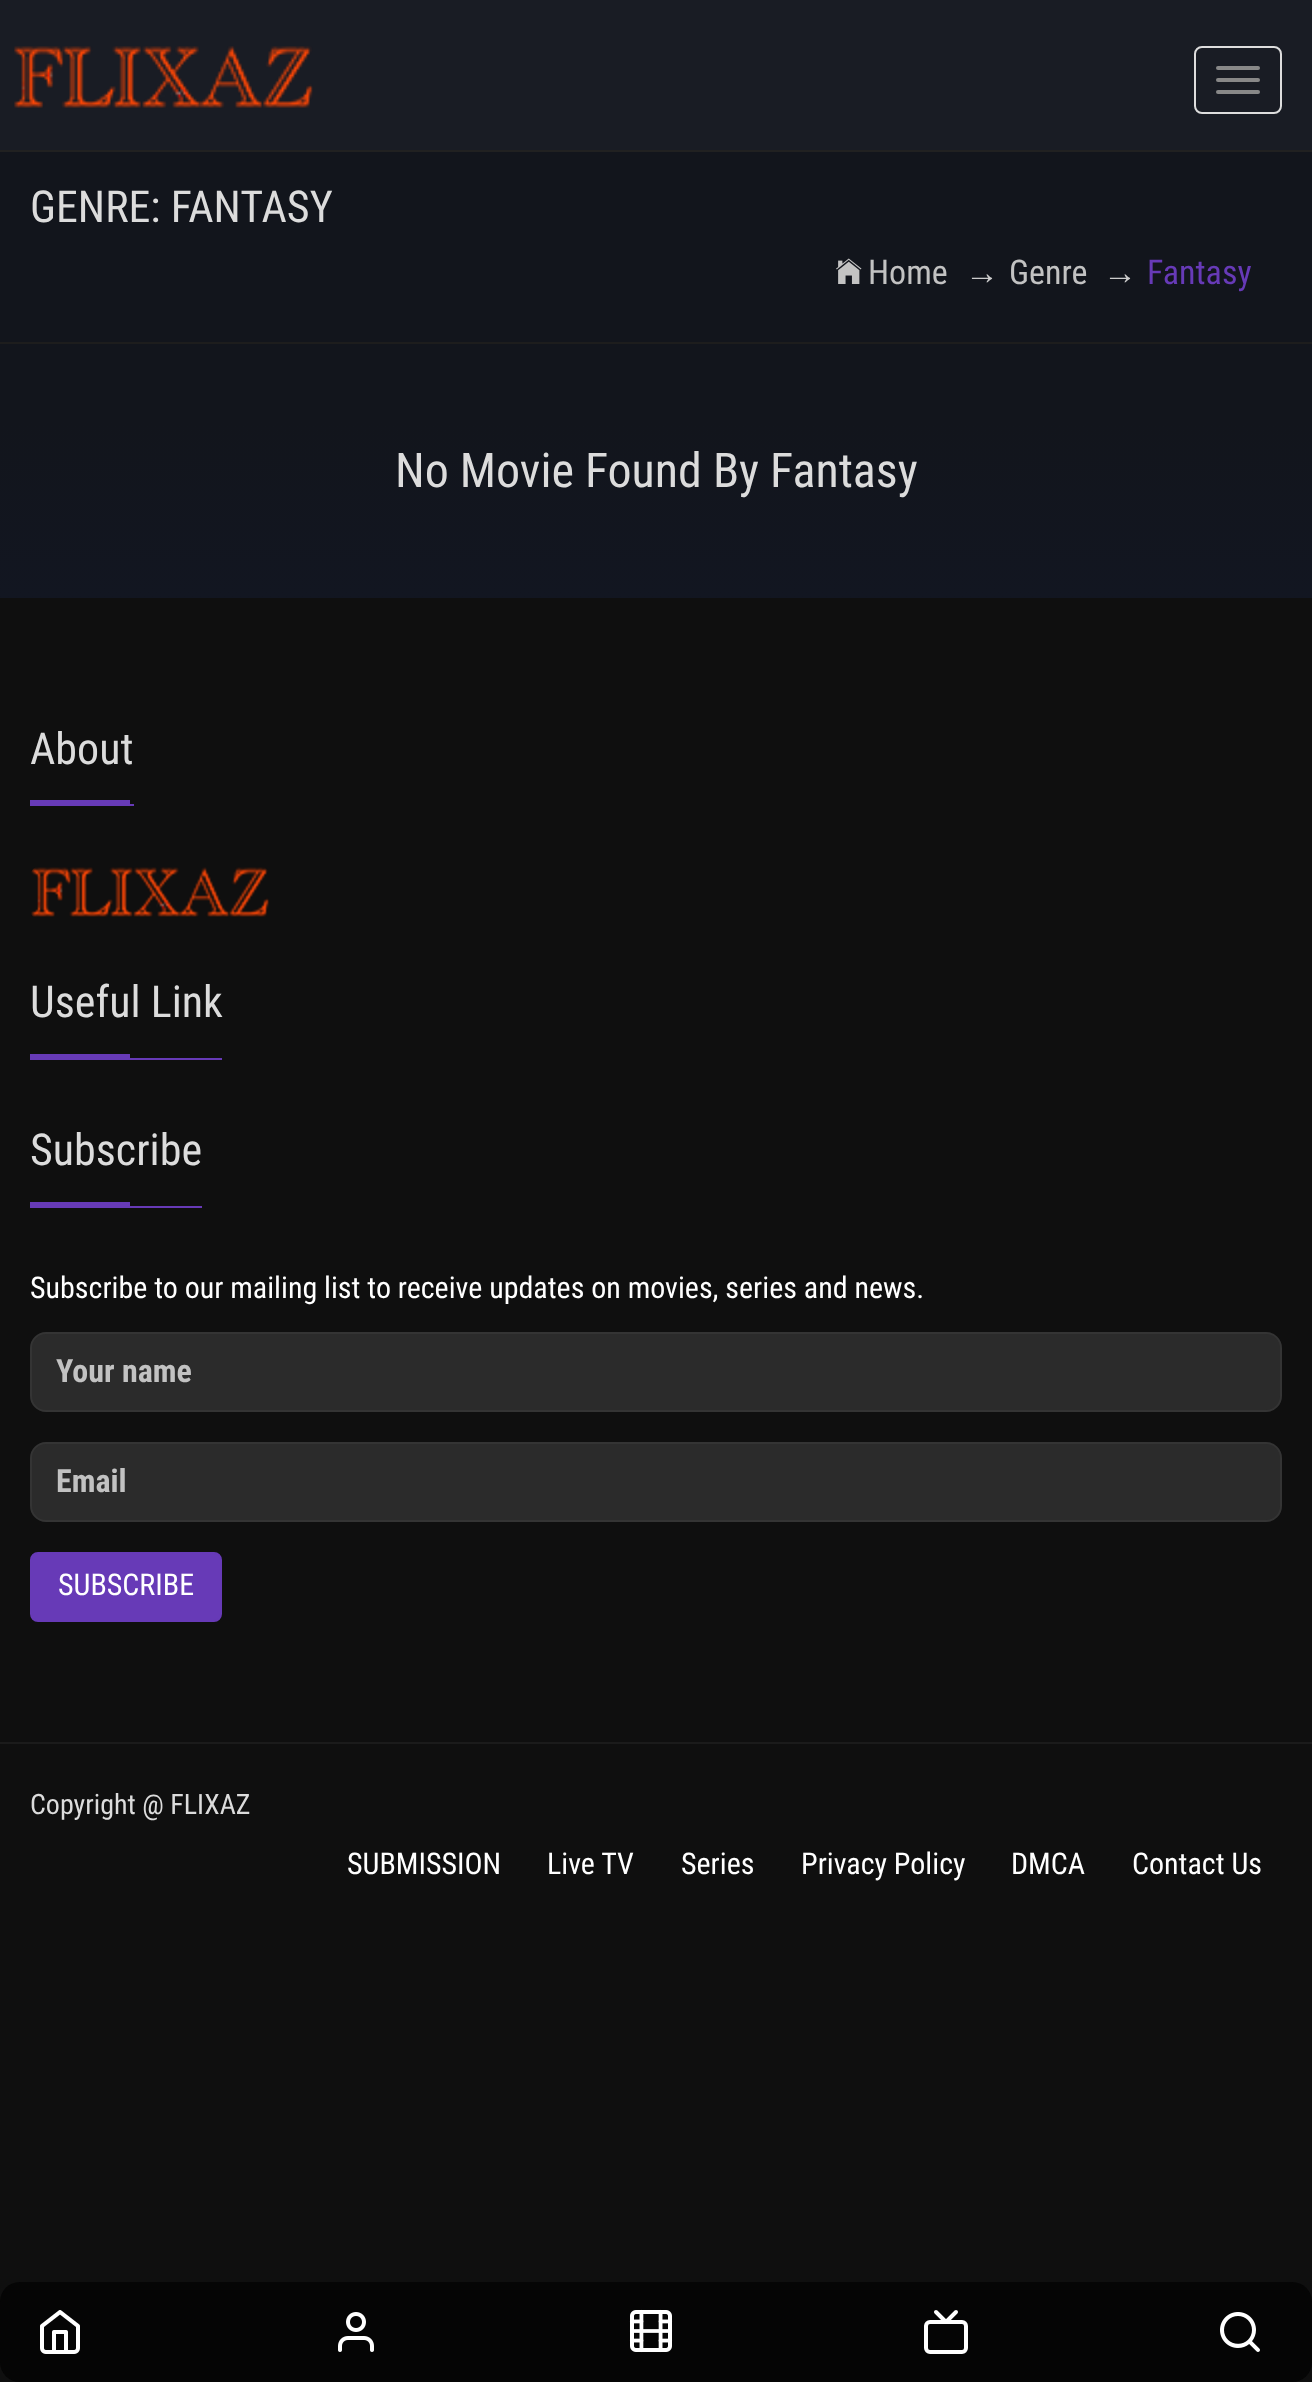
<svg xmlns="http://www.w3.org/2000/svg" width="1312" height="2382">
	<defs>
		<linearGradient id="g1" gradientUnits="userSpaceOnUse" x1="656" y1="398" x2="656" y2="598"><stop offset="0.11" stop-color="#12151C" /><stop offset="0.12" stop-color="#12151C" /><stop offset="1" stop-color="#121621" /></linearGradient>
	</defs>
	<rect width="100%" height="100%" fill="#0F0F0F" />
	<rect x="0" y="0" width="1312" height="150" fill="#191C24" />
	<rect x="0" y="150" width="1312" height="2" fill="#212121" />
	<image x="14" y="46" width="299" height="62" href="assets/img1.png" />
	<rect x="1195" y="47" width="86" height="66" rx="7" fill="none" stroke="#DDDDDD" stroke-width="2" />
	<rect x="1216" y="66" width="44" height="4" rx="2" fill="#888888" />
	<rect x="1216" y="78" width="44" height="4" rx="2" fill="#888888" />
	<rect x="1216" y="90" width="44" height="4" rx="2" fill="#888888" />
	<rect x="0" y="152" width="1312" height="246" fill="#12151C" />
	<rect x="0" y="342" width="1312" height="2" fill="#1D1D1D" />
	<text x="30" y="222" font-family="Roboto Condensed" font-size="44" fill="#DCDCDC">GENRE: FANTASY</text>
	<image x="836" y="258" width="26" height="26" href="assets/img2.png" />
	<text x="868" y="284" font-family="Roboto Condensed" font-size="34" fill="#C2C2C2">Home</text>
	<text x="965" y="284" font-family="Liberation Sans" font-size="34" fill="#CCCCCC">→</text>
	<text x="1009" y="284" font-family="Roboto Condensed" font-size="34" fill="#C2C2C2">Genre</text>
	<text x="1103" y="284" font-family="Liberation Sans" font-size="34" fill="#CCCCCC">→</text>
	<text x="1147" y="284" font-family="Roboto Condensed" font-size="34" fill="#673AB7">Fantasy</text>
	<rect x="0" y="398" width="1312" height="200" fill="url(#g1)" />
	<text x="395" y="487" font-family="Roboto Condensed" font-size="48" fill="#DCDCDC">No Movie Found By Fantasy</text>
	<rect x="30" y="804" width="104" height="2" fill="#673AB7" />
	<text x="30" y="764" font-family="Roboto Condensed" font-size="44" fill="#DCDCDC">About</text>
	<rect x="30" y="800" width="100" height="4" fill="#673AB7" />
	<image x="31" y="867" width="238" height="50" href="assets/img3.png" />
	<rect x="30" y="1058" width="192" height="2" fill="#673AB7" />
	<text x="30" y="1017" font-family="Roboto Condensed" font-size="44" fill="#DCDCDC">Useful Link</text>
	<rect x="30" y="1054" width="100" height="4" fill="#673AB7" />
	<rect x="30" y="1206" width="172" height="2" fill="#673AB7" />
	<text x="30" y="1165" font-family="Roboto Condensed" font-size="44" fill="#DCDCDC">Subscribe</text>
	<rect x="30" y="1202" width="100" height="4" fill="#673AB7" />
	<text x="30" y="1298" font-family="Roboto Condensed" font-size="30" fill="#FFFFFF">Subscribe to our mailing list to receive updates on movies, series and news.</text>
	<rect x="31" y="1333" width="1250" height="78" rx="15" fill="#2B2B2B" stroke="#343434" stroke-width="2" />
	<text x="56" y="1382" font-family="Roboto Condensed" font-size="32" font-weight="700" fill="#C2C2C2">Your name</text>
	<rect x="31" y="1443" width="1250" height="78" rx="15" fill="#2B2B2B" stroke="#343434" stroke-width="2" />
	<text x="56" y="1492" font-family="Roboto Condensed" font-size="32" font-weight="700" fill="#C2C2C2">Email</text>
	<rect x="31" y="1553" width="190" height="68" rx="7" fill="#673AB7" stroke="#673AB7" stroke-width="2" />
	<text x="58" y="1595" font-family="Roboto Condensed" font-size="30" fill="#FFFFFF">SUBSCRIBE</text>
	<rect x="0" y="1742" width="1312" height="2" fill="#1B1B1B" />
	<text x="30" y="1814" font-family="Roboto Condensed" font-size="28" fill="#DCDCDC">Copyright @ FLIXAZ</text>
	<g font-family="Roboto Condensed" font-size="30" fill="#FFFFFF">
		<text x="347" y="1874">SUBMISSION</text>
		<text x="547" y="1874">Live TV</text>
		<text x="681" y="1874">Series</text>
		<text x="801" y="1874">Privacy Policy</text>
		<text x="1011" y="1874">DMCA</text>
		<text x="1132" y="1874">Contact Us</text>
	</g>
	<rect x="0" y="2282" width="1312" height="100" rx="20" fill="#050505" />
	<image x="40" y="2310" width="40" height="44" href="assets/img4.png" />
	<image x="338" y="2312" width="36" height="40" href="assets/img5.png" />
	<image x="629" y="2309" width="44" height="44" href="assets/img6.png" />
	<rect x="926" y="2322" width="40" height="30" rx="4" fill="none" stroke="#FFFFFF" stroke-width="4" />
	<path d="M956 2312L946 2322L936 2312" fill="none" stroke="#FFFFFF" stroke-width="4" stroke-linecap="round" stroke-linejoin="round" />
	<image x="1220" y="2312" width="40" height="40" href="assets/img7.png" />
</svg>
